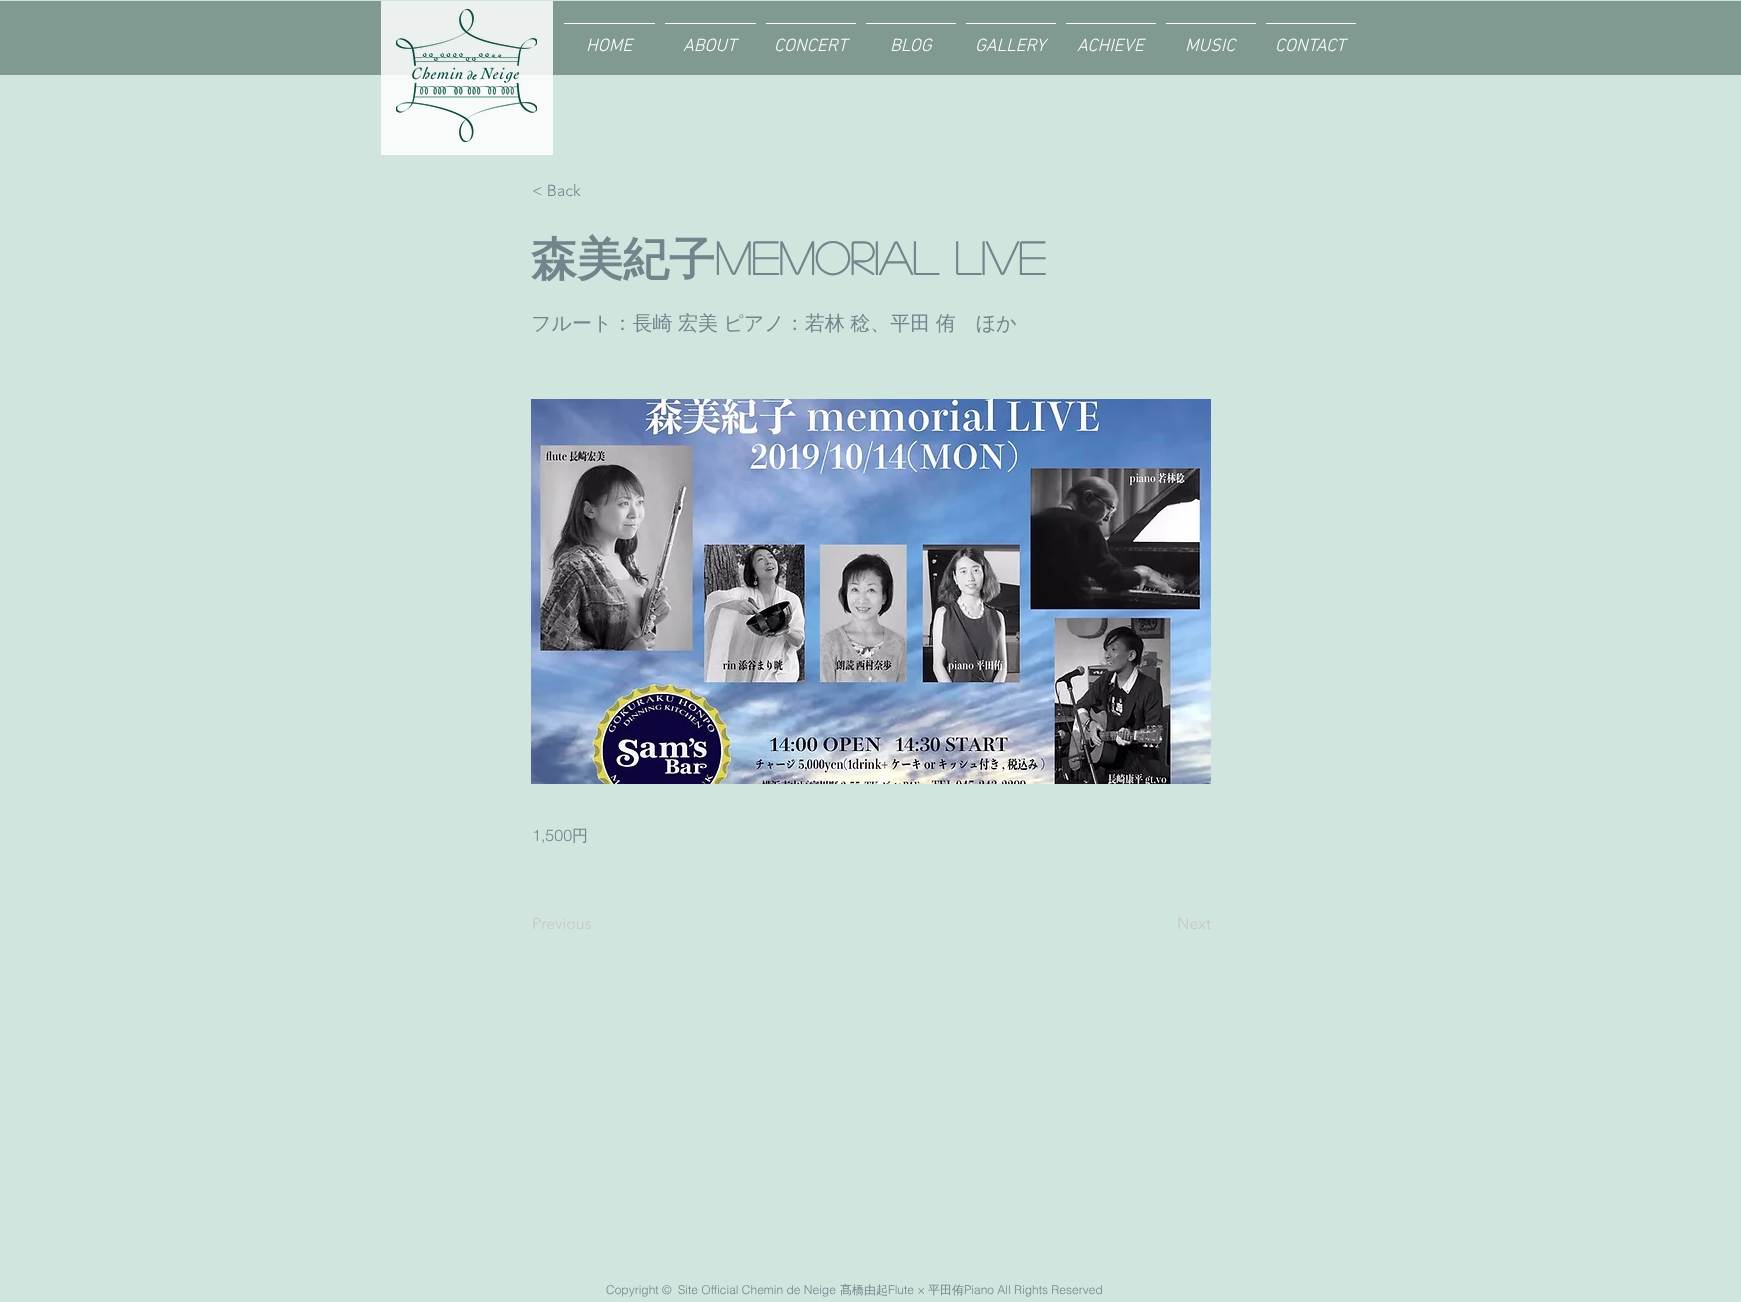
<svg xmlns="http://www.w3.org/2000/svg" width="1741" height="1302">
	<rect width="100%" height="100%" fill="#D0E5DE" />
	<rect x="381" y="75" width="172" height="80" fill="#F8FBFA" />
	<rect x="0" y="1" width="1741" height="74" fill="#809A91" />
	<rect x="381" y="1" width="172" height="74" fill="#ECF0EF" />
	<image x="396" y="9" width="141" height="133" href="assets/img1.png" />
	<rect x="564" y="23" width="91" height="1" fill="#FFFFFF" />
	<text x="586" y="51" font-family="'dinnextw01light'" font-size="18" font-weight="300" font-style="italic" fill="#FFFFFF">HOME</text>
	<rect x="665" y="23" width="91" height="1" fill="#FFFFFF" />
	<text x="683" y="51" font-family="'dinnextw01light'" font-size="18" font-weight="300" font-style="italic" fill="#FFFFFF">ABOUT</text>
	<rect x="766" y="23" width="90" height="1" fill="#FFFFFF" />
	<text x="774" y="51" font-family="'dinnextw01light'" font-size="18" font-weight="300" font-style="italic" fill="#FFFFFF">CONCERT</text>
	<rect x="866" y="23" width="90" height="1" fill="#FFFFFF" />
	<text x="890" y="51" font-family="'dinnextw01light'" font-size="18" font-weight="300" font-style="italic" fill="#FFFFFF">BLOG</text>
	<rect x="966" y="23" width="90" height="1" fill="#FFFFFF" />
	<text x="975" y="51" font-family="'dinnextw01light'" font-size="18" font-weight="300" font-style="italic" fill="#FFFFFF">GALLERY</text>
	<rect x="1066" y="23" width="90" height="1" fill="#FFFFFF" />
	<text x="1077" y="51" font-family="'dinnextw01light'" font-size="18" font-weight="300" font-style="italic" fill="#FFFFFF">ACHIEVE</text>
	<rect x="1166" y="23" width="90" height="1" fill="#FFFFFF" />
	<text x="1185" y="51" font-family="'dinnextw01light'" font-size="18" font-weight="300" font-style="italic" fill="#FFFFFF">MUSIC</text>
	<rect x="1266" y="23" width="90" height="1" fill="#FFFFFF" />
	<text x="1275" y="51" font-family="'dinnextw01light'" font-size="18" font-weight="300" font-style="italic" fill="#FFFFFF">CONTACT</text>
	<text x="532" y="196" font-family="'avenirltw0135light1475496'" font-size="16" font-weight="300" fill="#72858C">&lt; Back</text>
	<text x="531" y="275" font-family="WenQuanYi Zen Hei" font-size="46" font-weight="700" fill="#72858C">森美紀子</text>
	<text x="715" y="275" font-family="'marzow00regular'" font-size="46" font-weight="700" fill="#72858C">memorial LIVE</text>
	<text x="531" y="330" word-spacing="-0.5" font-family="WenQuanYi Zen Hei" font-size="20" font-weight="500" fill="#72858C">フルート：長崎 宏美 ピアノ：若林 稔、平田 侑　ほか</text>
	<image x="531" y="399" width="680" height="385" href="assets/img2.png" />
	<text x="532" y="841" font-family="helvetica" font-size="16" font-weight="300" fill="#72858C">1,500</text>
	<text x="572" y="841" font-family="WenQuanYi Zen Hei" font-size="16" font-weight="500" fill="#72858C">円</text>
	<g font-family="'avenirltw0135light1475496'" font-size="16" font-weight="300" fill="#C7C7C7">
		<text x="532" y="929">Previous</text>
		<text x="1177" y="929">Next</text>
	</g>
	<g font-family="helvetica" font-size="12" font-weight="300" fill="#72858C">
		<text x="606" y="1294">Copyright ©</text>
		<text x="678" y="1294">Site Official Chemin de Neige</text>
	</g>
	<text x="840" y="1294" font-family="WenQuanYi Zen Hei" font-size="12" font-weight="500" fill="#72858C">髙橋由起</text>
	<text x="888" y="1294" font-family="helvetica" font-size="12" font-weight="300" fill="#72858C">Flute ×</text>
	<text x="928" y="1294" font-family="WenQuanYi Zen Hei" font-size="12" font-weight="500" fill="#72858C">平田侑</text>
	<text x="964" y="1294" font-family="helvetica" font-size="12" font-weight="300" fill="#72858C">Piano All Rights Reserved</text>
</svg>
